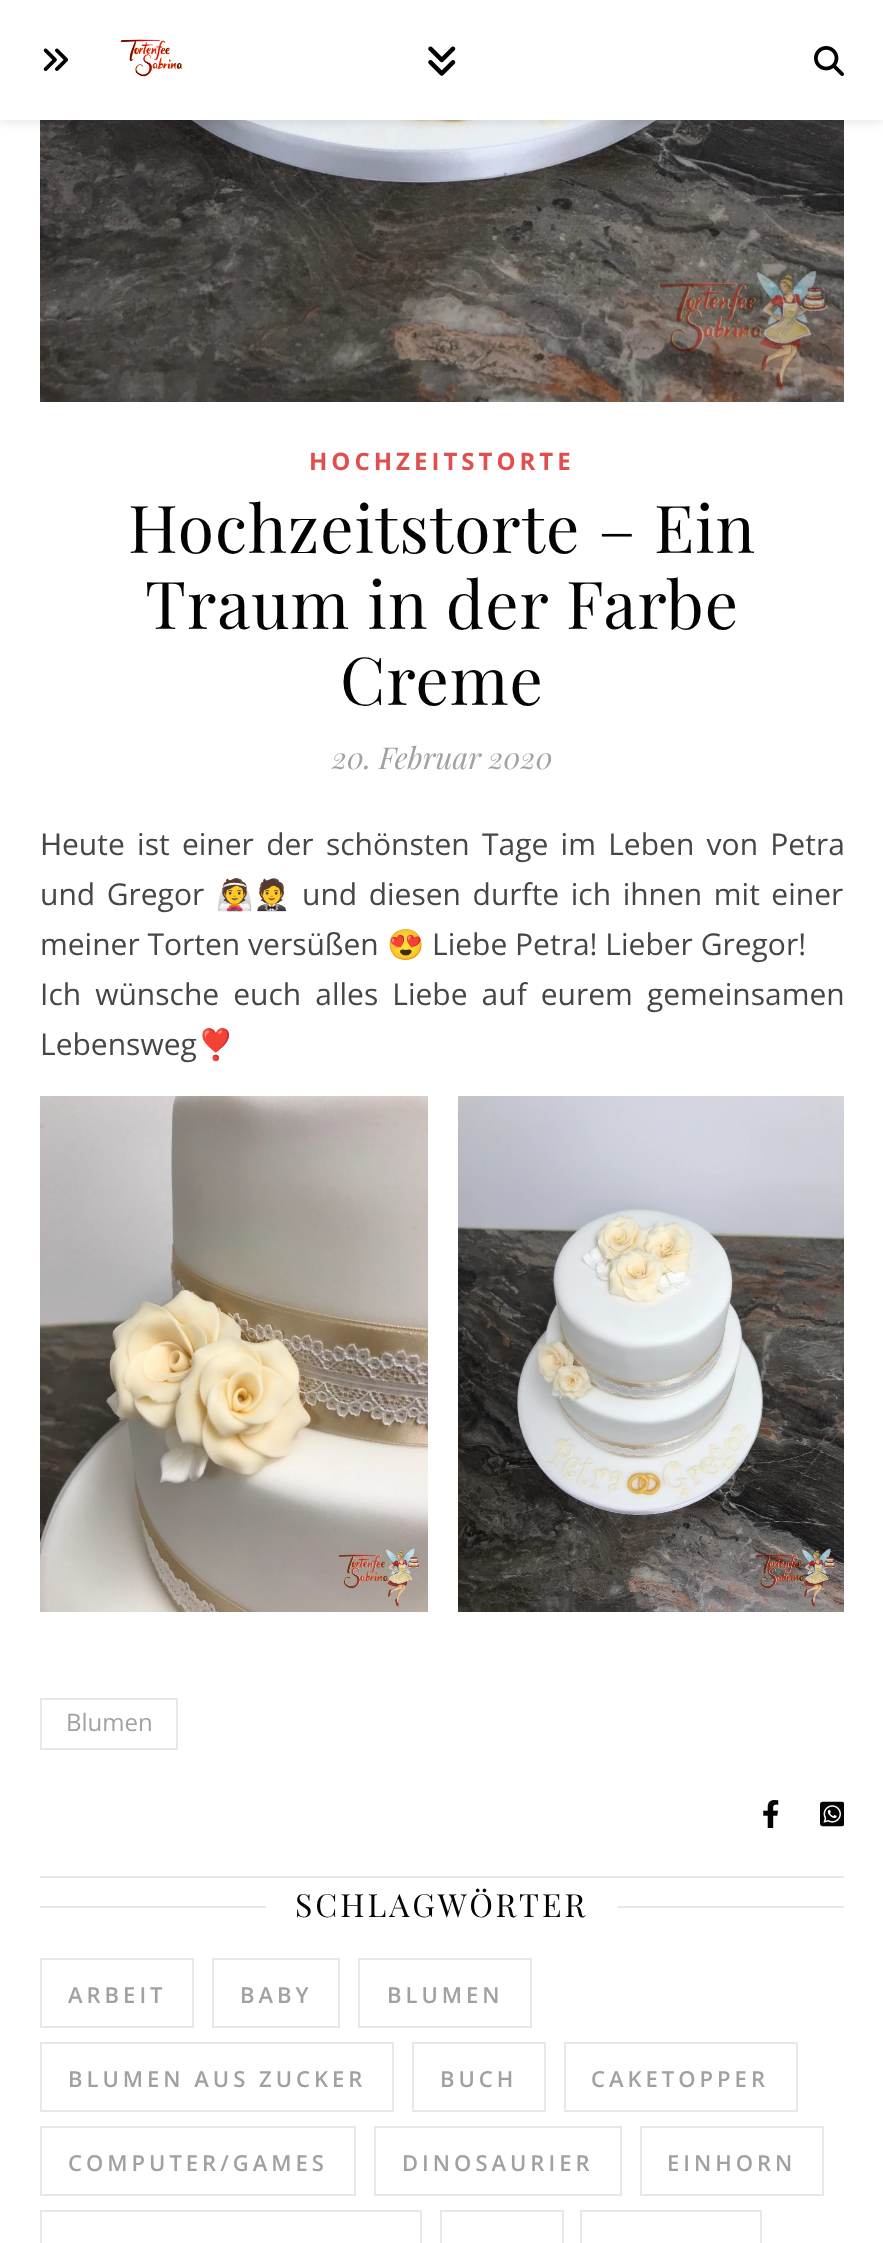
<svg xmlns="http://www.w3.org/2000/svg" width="883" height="2243">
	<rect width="100%" height="100%" fill="#FFFFFF" />
	<image x="40" y="120" width="804" height="282" href="assets/img5.png" />
	<rect x="0" y="2" width="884" height="120" fill="#000000" fill-opacity="0.1" filter="blur(5px)" />
	<rect x="0" y="0" width="883" height="120" fill="#FFFFFF" />
	<image x="43" y="48" width="26" height="23" href="assets/img1.png" />
	<image x="120" y="39" width="63" height="38" href="assets/img2.png" />
	<image x="428" y="46" width="28" height="30" href="assets/img3.png" />
	<image x="814" y="46" width="30" height="30" href="assets/img4.png" />
	<text x="309" y="470" font-family="Open Sans" font-size="24" font-weight="700" letter-spacing="4" fill="#E04E4E">HOCHZEITSTORTE</text>
	<g font-family="Playfair Display" font-size="66" letter-spacing="1" fill="#030303">
		<text x="128" y="553">Hochzeitstorte – Ein</text>
		<text x="145" y="629">Traum in der Farbe</text>
		<text x="340" y="705">Creme</text>
	</g>
	<text x="332" y="769" font-family="Playfair Display" font-size="30" font-style="italic" fill="#A1A1A1">20. Februar 2020</text>
	<text x="40" y="855" font-family="Noto Sans" font-size="30" fill="#464646">H</text>
	<g font-family="Open Sans" font-size="30" fill="#464646">
		<text x="62" y="855" word-spacing="4.5">eute ist einer der schönsten Tage im Leben von Petra</text>
		<text x="40" y="905" word-spacing="3.75">und Gregor</text>
	</g>
	<text x="216" y="905" font-family="Noto Color Emoji" font-size="30" fill="#464646">👰🤵</text>
	<g font-family="Open Sans" font-size="30" fill="#464646">
		<text x="302" y="905" word-spacing="3.75">und diesen durfte ich ihnen mit einer</text>
		<text x="40" y="955">meiner Torten versüßen</text>
	</g>
	<text x="387" y="955" font-family="Noto Color Emoji" font-size="30" fill="#464646">😍</text>
	<g font-family="Open Sans" font-size="30" fill="#464646">
		<text x="432" y="955">Liebe Petra! Lieber Gregor!</text>
		<text x="40" y="1005" word-spacing="6.25">Ich wünsche euch alles Liebe auf eurem gemeinsamen</text>
		<text x="40" y="1055">Lebensweg</text>
	</g>
	<text x="197" y="1055" font-family="Noto Color Emoji" font-size="30" fill="#464646">❣️</text>
	<image x="40" y="1096" width="388" height="516" href="assets/img6.png" />
	<image x="458" y="1096" width="386" height="516" href="assets/img7.png" />
	<rect x="40" y="1876" width="804" height="2" fill="#E8E8E8" />
	<rect x="41" y="1699" width="136" height="50" fill="none" stroke="#E8E8E8" stroke-width="2" />
	<text x="66" y="1731" font-family="Open Sans" font-size="24" fill="#A1A1A1">Blumen</text>
	<image x="763" y="1800" width="16" height="28" href="assets/img8.png" />
	<image x="820" y="1801" width="24" height="26" href="assets/img9.png" />
	<rect x="40" y="1906" width="226" height="2" fill="#E8E8E8" />
	<text x="295" y="1917" font-family="Playfair Display" font-size="32" letter-spacing="3" fill="#030303">SCHLAGWÖRTER</text>
	<rect x="618" y="1906" width="226" height="2" fill="#E8E8E8" />
	<rect x="41" y="1959" width="152" height="68" fill="none" stroke="#E8E8E8" stroke-width="2" />
	<text x="68" y="2003" font-family="Open Sans" font-size="22" font-weight="600" letter-spacing="4" fill="#A1A1A1">ARBEIT</text>
	<rect x="213" y="1959" width="126" height="68" fill="none" stroke="#E8E8E8" stroke-width="2" />
	<text x="240" y="2003" font-family="Open Sans" font-size="22" font-weight="600" letter-spacing="4" fill="#A1A1A1">BABY</text>
	<rect x="359" y="1959" width="172" height="68" fill="none" stroke="#E8E8E8" stroke-width="2" />
	<text x="387" y="2003" font-family="Open Sans" font-size="22" font-weight="600" letter-spacing="4" fill="#A1A1A1">BLUMEN</text>
	<rect x="41" y="2043" width="352" height="68" fill="none" stroke="#E8E8E8" stroke-width="2" />
	<text x="68" y="2087" font-family="Open Sans" font-size="22" font-weight="600" letter-spacing="4" fill="#A1A1A1">BLUMEN AUS ZUCKER</text>
	<rect x="413" y="2043" width="132" height="68" fill="none" stroke="#E8E8E8" stroke-width="2" />
	<text x="440" y="2087" font-family="Open Sans" font-size="22" font-weight="600" letter-spacing="4" fill="#A1A1A1">BUCH</text>
	<rect x="565" y="2043" width="232" height="68" fill="none" stroke="#E8E8E8" stroke-width="2" />
	<text x="591" y="2087" font-family="Open Sans" font-size="22" font-weight="600" letter-spacing="4" fill="#A1A1A1">CAKETOPPER</text>
	<rect x="41" y="2127" width="314" height="68" fill="none" stroke="#E8E8E8" stroke-width="2" />
	<text x="68" y="2171" font-family="Open Sans" font-size="22" font-weight="600" letter-spacing="4" fill="#A1A1A1">COMPUTER/GAMES</text>
	<rect x="375" y="2127" width="246" height="68" fill="none" stroke="#E8E8E8" stroke-width="2" />
	<text x="402" y="2171" font-family="Open Sans" font-size="22" font-weight="600" letter-spacing="4" fill="#A1A1A1">DINOSAURIER</text>
	<rect x="641" y="2127" width="182" height="68" fill="none" stroke="#E8E8E8" stroke-width="2" />
	<text x="667" y="2171" font-family="Open Sans" font-size="22" font-weight="600" letter-spacing="4" fill="#A1A1A1">EINHORN</text>
	<rect x="41" y="2211" width="380" height="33" fill="none" stroke="#E8E8E8" stroke-width="2" />
	<rect x="441" y="2211" width="122" height="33" fill="none" stroke="#E8E8E8" stroke-width="2" />
	<rect x="581" y="2211" width="180" height="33" fill="none" stroke="#E8E8E8" stroke-width="2" />
</svg>
